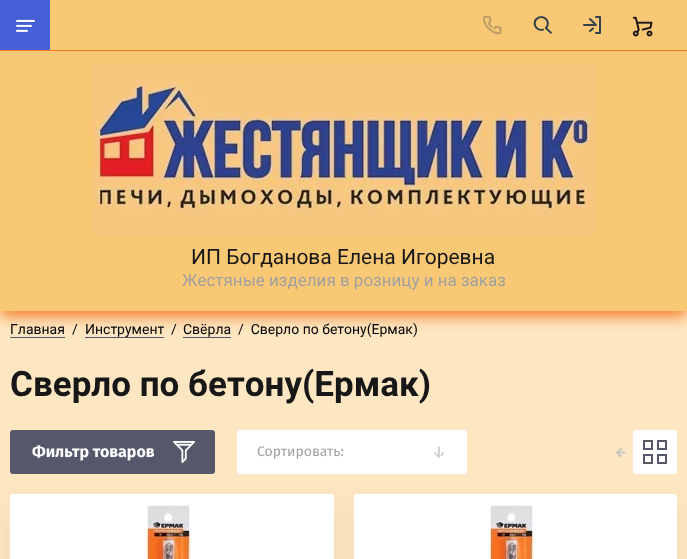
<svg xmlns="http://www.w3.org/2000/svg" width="687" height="559">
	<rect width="100%" height="100%" fill="#FDE7C2" />
	<rect x="10" y="337" width="55" height="1" fill="#54586A" />
	<rect x="85" y="337" width="79" height="1" fill="#54586A" />
	<rect x="183" y="337" width="48" height="1" fill="#54586A" />
	<rect x="0" y="5" width="687" height="311" fill="#F57823" filter="blur(7.5px)" />
	<rect x="0" y="0" width="687" height="311" fill="#F9C875" />
	<rect x="0" y="0" width="50" height="50" fill="#4560D7" />
	<image x="16" y="19" width="19" height="13" href="assets/img1.png" />
	<image x="483" y="15" width="19" height="20" href="assets/img2.png" />
	<image x="533" y="16" width="19" height="18" href="assets/img3.png" />
	<image x="583" y="16" width="18" height="18" href="assets/img4.png" />
	<image x="632" y="16" width="21" height="21" href="assets/img5.png" />
	<rect x="0" y="50" width="687" height="1" fill="#F57823" />
	<image x="94" y="65" width="500" height="169" href="assets/img6.png" />
	<text x="191" y="264" font-family="Roboto" font-size="21" fill="#181717">ИП Богданова Елена Игоревна</text>
	<text x="182" y="286" font-family="Roboto" font-size="17" fill="#A2A1A1">Жестяные изделия в розницу и на заказ</text>
	<g font-family="Roboto" font-size="14" fill="#000000">
		<text x="10" y="334">Главная</text>
		<text x="72" y="334">/</text>
		<text x="85" y="334">Инструмент</text>
		<text x="171" y="334">/</text>
		<text x="183" y="334">Свёрла</text>
		<text x="238" y="334" xml:space="preserve">/  Сверло по бетону(Ермак)</text>
	</g>
	<text x="10" y="396" font-family="Roboto" font-size="35" font-weight="700" fill="#181717">Сверло по бетону(Ермак)</text>
	<rect x="10" y="430" width="205" height="44" rx="3" fill="#54586A" />
	<text x="32" y="457" font-family="Fira Sans" font-size="16" font-weight="700" fill="#FFFFFF">Фильтр товаров</text>
	<image x="173" y="441" width="22" height="22" href="assets/img7.png" />
	<rect x="10" y="504" width="324" height="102" rx="3" fill="#000000" fill-opacity="0.05" filter="blur(14.5px)" />
	<rect x="633" y="430" width="44" height="44" rx="3" fill="#FFFFFF" />
	<rect x="644" y="455" width="8" height="8" fill="none" stroke="#54586A" stroke-width="2" />
	<rect x="658" y="455" width="8" height="8" fill="none" stroke="#54586A" stroke-width="2" />
	<rect x="10" y="494" width="324" height="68" rx="3" fill="#FFFFFF" />
	<rect x="354" y="504" width="323" height="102" rx="3" fill="#000000" fill-opacity="0.05" filter="blur(14.5px)" />
	<rect x="238" y="431" width="228" height="42" rx="2" fill="#FFFFFF" stroke="#FFFFFF" stroke-width="2" />
	<text x="257" y="456" font-family="Fira Sans" font-size="14" fill="#A2A1A1">Сортировать:</text>
	<image x="434" y="446" width="10" height="12" href="assets/img8.png" />
	<image x="616" y="448" width="10" height="9" href="assets/img9.png" />
	<rect x="644" y="441" width="8" height="8" fill="none" stroke="#54586A" stroke-width="2" />
	<rect x="658" y="441" width="8" height="8" fill="none" stroke="#54586A" stroke-width="2" />
	<image x="144" y="505" width="47" height="54" href="assets/img10.png" />
	<rect x="354" y="494" width="323" height="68" rx="3" fill="#FFFFFF" />
	<image x="487" y="505" width="47" height="54" href="assets/img10.png" />
</svg>
